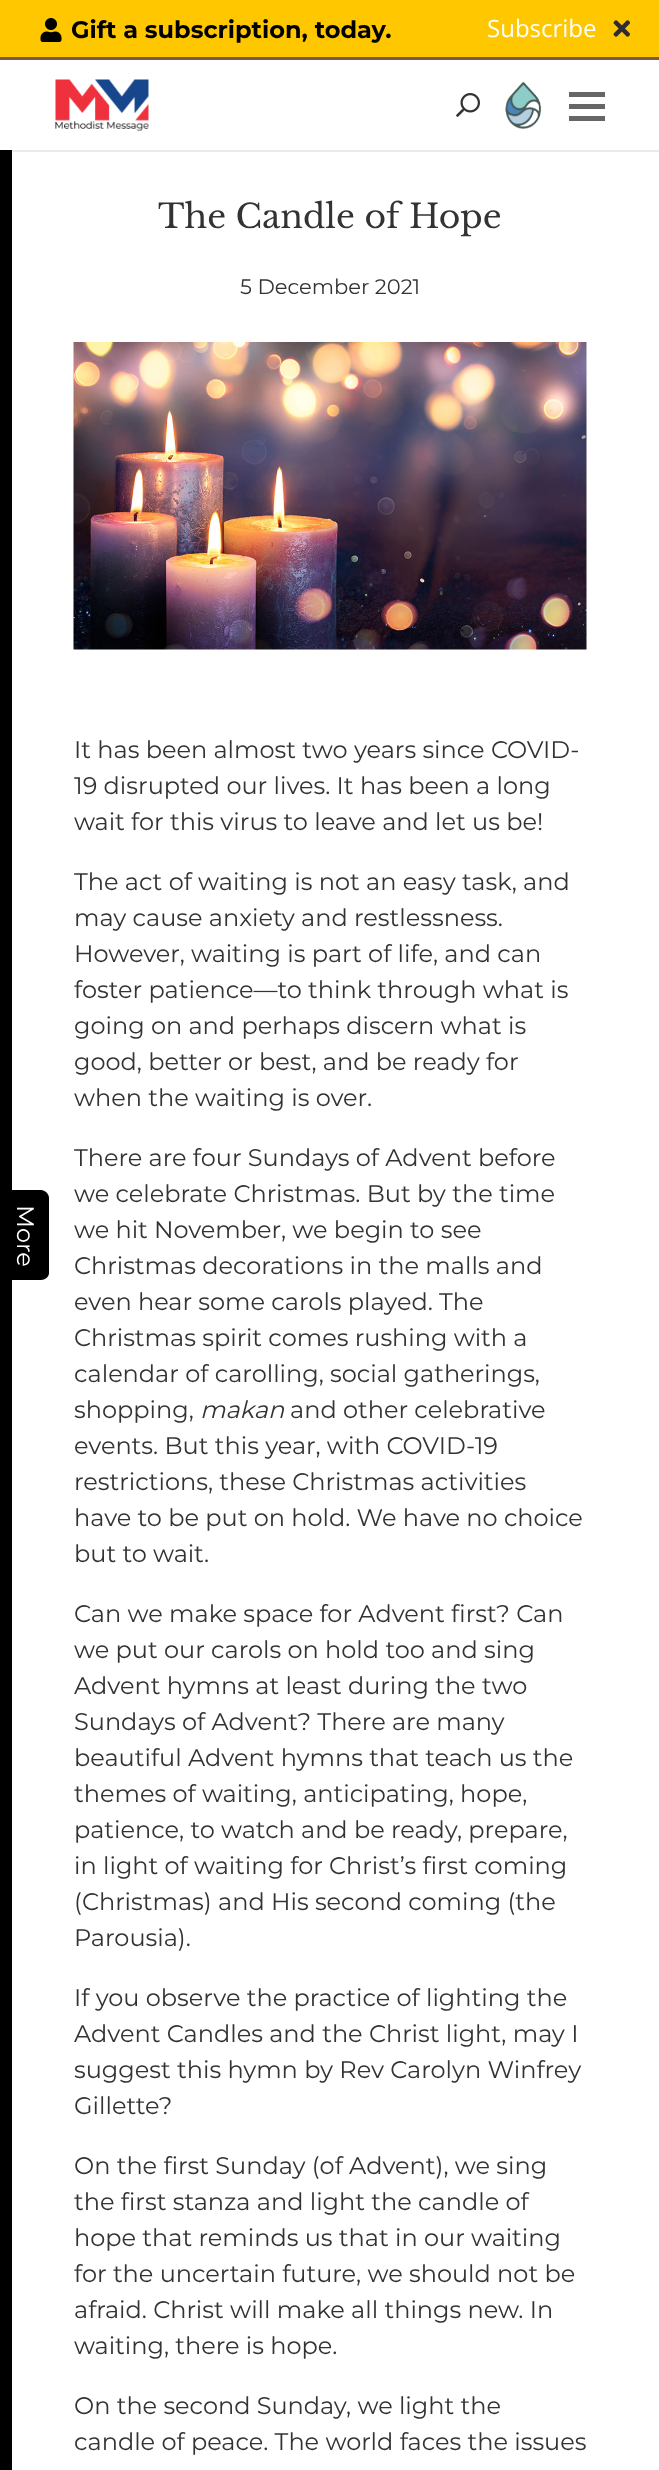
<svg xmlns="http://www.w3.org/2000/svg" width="659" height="2470">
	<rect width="100%" height="100%" fill="#FFFFFF" />
	<rect x="0" y="0" width="659" height="57" fill="#FFC700" />
	<rect x="0" y="57" width="659" height="3" fill="#7E593F" />
	<image x="40" y="18" width="22" height="24" href="assets/img1.png" />
	<text x="71" y="38" font-family="Montserrat" font-size="24" font-weight="700" fill="#000000">Gift a subscription, today.</text>
	<text x="487" y="37" font-family="Open Sans" font-size="24" fill="#FFFFFF">Subscribe</text>
	<image x="613" y="20" width="17" height="17" href="assets/img2.png" />
	<rect x="12" y="150" width="647" height="2" fill="#000000" fill-opacity="0.08" />
	<image x="55" y="79" width="94" height="52" href="assets/img3.png" />
	<image x="456" y="93" width="24" height="24" href="assets/img4.png" />
	<image x="505" y="81" width="37" height="48" href="assets/img5.png" />
	<rect x="569" y="104" width="36" height="5" fill="#666666" />
	<rect x="569" y="92" width="36" height="5" fill="#666666" />
	<rect x="569" y="116" width="36" height="5" fill="#666666" />
	<path d="M49 1198V1273C49 1277 45 1280 41 1280H11V1190H41C45 1190 49 1194 49 1198Z" fill="#000000" />
	<rect x="0" y="150" width="12" height="2320" fill="#000000" />
	<text x="17" y="1205" transform="rotate(90 17 1205)" font-family="Montserrat" font-size="24" fill="#FFFFFF">More</text>
	<text x="158" y="228" font-family="Libre Baskerville" font-size="33" fill="#333333">The Candle of Hope</text>
	<text x="240" y="294" font-family="Montserrat" font-size="21" fill="#333333">5 December 2021</text>
	<image x="73" y="342" width="514" height="308" href="assets/img6.png" />
	<g font-family="Montserrat" font-size="24" fill="#333333">
		<text x="74" y="758">It has been almost two years since COVID-</text>
		<text x="74" y="794">19 disrupted our lives. It has been a long</text>
		<text x="74" y="830">wait for this virus to leave and let us be!</text>
		<text x="74" y="890">The act of waiting is not an easy task, and</text>
		<text x="74" y="926">may cause anxiety and restlessness.</text>
		<text x="74" y="962">However, waiting is part of life, and can</text>
		<text x="74" y="998">foster patience—to think through what is</text>
		<text x="74" y="1034">going on and perhaps discern what is</text>
		<text x="74" y="1070">good, better or best, and be ready for</text>
		<text x="74" y="1106">when the waiting is over.</text>
		<text x="74" y="1166">There are four Sundays of Advent before</text>
		<text x="74" y="1202">we celebrate Christmas. But by the time</text>
		<text x="74" y="1238">we hit November, we begin to see</text>
		<text x="74" y="1274">Christmas decorations in the malls and</text>
		<text x="74" y="1310">even hear some carols played. The</text>
		<text x="74" y="1346">Christmas spirit comes rushing with a</text>
		<text x="74" y="1382">calendar of carolling, social gatherings,</text>
		<text x="74" y="1418">shopping,</text>
	</g>
	<text x="200" y="1418" font-family="Montserrat" font-size="24" font-style="italic" fill="#333333">makan</text>
	<g font-family="Montserrat" font-size="24" fill="#333333">
		<text x="290" y="1418">and other celebrative</text>
		<text x="74" y="1454">events. But this year, with COVID-19</text>
		<text x="74" y="1490">restrictions, these Christmas activities</text>
		<text x="74" y="1526">have to be put on hold. We have no choice</text>
		<text x="74" y="1562">but to wait.</text>
		<text x="74" y="1622">Can we make space for Advent first? Can</text>
		<text x="74" y="1658">we put our carols on hold too and sing</text>
		<text x="74" y="1694">Advent hymns at least during the two</text>
		<text x="74" y="1730">Sundays of Advent? There are many</text>
		<text x="74" y="1766">beautiful Advent hymns that teach us the</text>
		<text x="74" y="1802">themes of waiting, anticipating, hope,</text>
		<text x="74" y="1838">patience, to watch and be ready, prepare,</text>
		<text x="74" y="1874">in light of waiting for Christ’s first coming</text>
		<text x="74" y="1910">(Christmas) and His second coming (the</text>
		<text x="74" y="1946">Parousia).</text>
		<text x="74" y="2006">If you observe the practice of lighting the</text>
		<text x="74" y="2042">Advent Candles and the Christ light, may I</text>
		<text x="74" y="2078">suggest this hymn by Rev Carolyn Winfrey</text>
		<text x="74" y="2114">Gillette?</text>
		<text x="74" y="2174">On the first Sunday (of Advent), we sing</text>
		<text x="74" y="2210">the first stanza and light the candle of</text>
		<text x="74" y="2246">hope that reminds us that in our waiting</text>
		<text x="74" y="2282">for the uncertain future, we should not be</text>
		<text x="74" y="2318">afraid. Christ will make all things new. In</text>
		<text x="74" y="2354">waiting, there is hope.</text>
		<text x="74" y="2414">On the second Sunday, we light the</text>
		<text x="74" y="2450">candle of peace. The world faces the issues</text>
	</g>
</svg>
